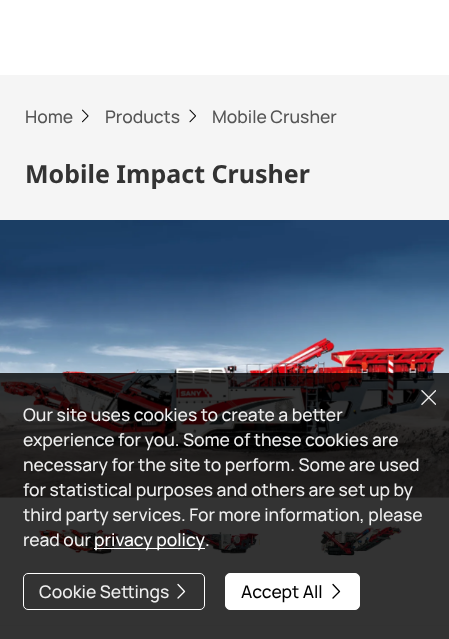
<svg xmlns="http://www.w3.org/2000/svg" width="449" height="639">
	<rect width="100%" height="100%" fill="#FFFFFF" />
	<rect x="0" y="75" width="449" height="423" fill="#F5F5F5" />
	<text x="25" y="123" font-family="Manrope" font-size="17.5" font-weight="500" fill="#555555">Home</text>
	<image x="82" y="109" width="7" height="14" href="assets/img1.png" />
	<text x="105" y="123" font-family="Manrope" font-size="17.5" font-weight="500" fill="#555555">Products</text>
	<image x="189" y="109" width="7" height="14" href="assets/img2.png" />
	<text x="212" y="123" font-family="Manrope" font-size="17.5" font-weight="500" fill="#555555">Mobile Crusher</text>
	<text x="25" y="183" font-family="Noto Sans" font-size="25" font-weight="700" fill="#333333">Mobile Impact Crusher</text>
	<image x="0" y="220" width="449" height="278" href="assets/img3.png" />
	<image x="38" y="529" width="82" height="26" href="assets/img4.png" />
	<image x="180" y="528" width="80" height="26" href="assets/img5.png" />
	<image x="320" y="526" width="82" height="31" href="assets/img6.png" />
	<rect x="0" y="625" width="449" height="1" fill="#F8F8F8" />
	<rect x="0" y="373" width="449" height="266" fill="#000000" fill-opacity="0.8" />
	<image x="421" y="390" width="15" height="15" href="assets/img7.png" />
	<g font-family="Manrope" font-size="17.5" font-weight="500" fill="#EEEEEE">
		<text x="23" y="421">Our site uses cookies to create a better</text>
		<text x="23" y="446">experience for you. Some of these cookies are</text>
		<text x="23" y="471">necessary for the site to perform. Some are used</text>
		<text x="23" y="496">for statistical purposes and others are set up by</text>
		<text x="23" y="521">third party services. For more information, please</text>
		<text x="23" y="546">read our</text>
	</g>
	<rect x="94" y="548" width="111" height="1" fill="#FFFFFF" />
	<text x="94" y="546" font-family="Manrope" font-size="17.5" font-weight="500" fill="#FFFFFF">privacy policy</text>
	<text x="205" y="546" font-family="Manrope" font-size="17.5" font-weight="500" fill="#EEEEEE">.</text>
	<rect x="23.5" y="573.5" width="181" height="36" rx="4.5" fill="none" stroke="#FFFFFF" />
	<text x="39" y="598" font-family="Manrope" font-size="17.5" font-weight="500" fill="#EEEEEE">Cookie Settings</text>
	<path d="M178 584.5L184.5 591.5L178 598" fill="none" stroke="#FFFFFF" stroke-width="1.3" stroke-linecap="round" stroke-linejoin="round" />
	<rect x="225.5" y="573.5" width="134" height="36" rx="4.5" fill="#FFFFFF" stroke="#FFFFFF" />
	<text x="241" y="598" font-family="Manrope" font-size="17.5" font-weight="500" fill="#000000">Accept All</text>
	<path d="M333 584.5L339.5 591.5L333 598" fill="none" stroke="#000000" stroke-width="1.3" stroke-linecap="round" stroke-linejoin="round" />
</svg>
